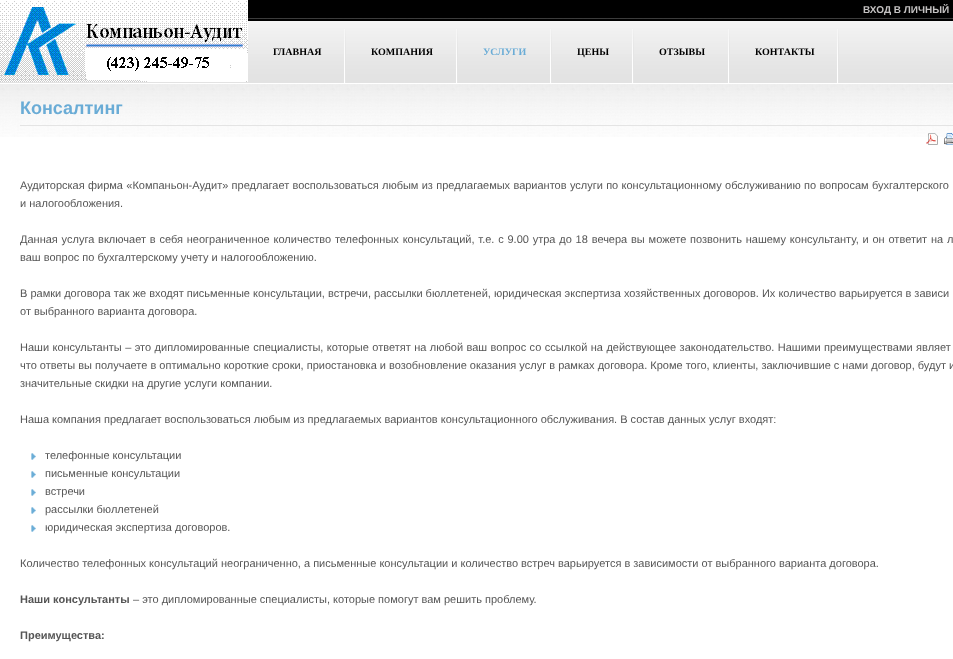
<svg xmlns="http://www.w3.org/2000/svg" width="953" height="659">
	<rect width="100%" height="100%" fill="#FFFFFF" />
	<image x="0" y="0" width="953" height="83" href="assets/img1.png" />
	<image x="0" y="0" width="248" height="82" href="assets/img2.png" />
	<text x="863" y="13" font-family="Liberation Sans" font-size="10" font-weight="700" fill="#C4C2C2">ВХОД В ЛИЧНЫЙ</text>
	<image x="344" y="29" width="2" height="54" href="assets/img3.png" />
	<text x="273" y="55" font-family="Liberation Serif" font-size="10" font-weight="700" fill="#000000">ГЛАВНАЯ</text>
	<image x="456" y="29" width="2" height="54" href="assets/img3.png" />
	<text x="371" y="55" font-family="Liberation Serif" font-size="10" font-weight="700" fill="#000000">КОМПАНИЯ</text>
	<image x="550" y="29" width="2" height="54" href="assets/img3.png" />
	<text x="483" y="55" font-family="Liberation Serif" font-size="10" font-weight="700" fill="#6AACD6">УСЛУГИ</text>
	<image x="632" y="29" width="2" height="54" href="assets/img3.png" />
	<text x="577" y="55" font-family="Liberation Serif" font-size="10" font-weight="700" fill="#000000">ЦЕНЫ</text>
	<image x="728" y="29" width="2" height="54" href="assets/img3.png" />
	<text x="659" y="55" font-family="Liberation Serif" font-size="10" font-weight="700" fill="#000000">ОТЗЫВЫ</text>
	<image x="837" y="29" width="2" height="54" href="assets/img3.png" />
	<text x="755" y="55" font-family="Liberation Serif" font-size="10" font-weight="700" fill="#000000">КОНТАКТЫ</text>
	<image x="0" y="84" width="953" height="53" href="assets/img4.png" />
	<rect x="20" y="125" width="933" height="1" fill="#E4E4E4" />
	<text x="20" y="114" font-family="Liberation Sans" font-size="18" font-weight="700" fill="#6AACD6">Консалтинг</text>
	<image x="926" y="133" width="12" height="12" href="assets/img5.png" />
	<image x="944" y="133" width="9" height="12" href="assets/img6.png" />
	<g font-family="Liberation Sans" font-size="11" fill="#555555">
		<text x="20" y="189" word-spacing="0.25">Аудиторская фирма «Компаньон-Аудит» предлагает воспользоваться любым из предлагаемых вариантов услуги по консультационному обслуживанию по вопросам бухгалтерского</text>
		<text x="20" y="207">и налогообложения.</text>
		<text x="20" y="243" word-spacing="0.75">Данная услуга включает в себя неограниченное количество телефонных консультаций, т.е. с 9.00 утра до 18 вечера вы можете позвонить нашему консультанту, и он ответит на л</text>
		<text x="20" y="261">ваш вопрос по бухгалтерскому учету и налогообложению.</text>
		<text x="20" y="297">В рамки договора так же входят письменные консультации, встречи, рассылки бюллетеней, юридическая экспертиза хозяйственных договоров. Их количество варьируется в зависи</text>
		<text x="20" y="315">от выбранного варианта договора.</text>
		<text x="20" y="351" word-spacing="0.4">Наши консультанты – это дипломированные специалисты, которые ответят на любой ваш вопрос со ссылкой на действующее законодательство. Нашими преимуществами являет</text>
		<text x="20" y="369">что ответы вы получаете в оптимально короткие сроки, приостановка и возобновление оказания услуг в рамках договора. Кроме того, клиенты, заключившие с нами договор, будут и</text>
		<text x="20" y="387">значительные скидки на другие услуги компании.</text>
		<text x="20" y="423">Наша компания предлагает воспользоваться любым из предлагаемых вариантов консультационного обслуживания. В состав данных услуг входят:</text>
	</g>
	<image x="31" y="453" width="5" height="7" href="assets/img7.png" />
	<text x="45" y="459" font-family="Liberation Sans" font-size="11" fill="#555555">телефонные консультации</text>
	<image x="31" y="471" width="5" height="7" href="assets/img7.png" />
	<text x="45" y="477" font-family="Liberation Sans" font-size="11" fill="#555555">письменные консультации</text>
	<image x="31" y="489" width="5" height="7" href="assets/img7.png" />
	<text x="45" y="495" font-family="Liberation Sans" font-size="11" fill="#555555">встречи</text>
	<image x="31" y="507" width="5" height="7" href="assets/img7.png" />
	<text x="45" y="513" font-family="Liberation Sans" font-size="11" fill="#555555">рассылки бюллетеней</text>
	<image x="31" y="525" width="5" height="7" href="assets/img7.png" />
	<g font-family="Liberation Sans" font-size="11" fill="#555555">
		<text x="45" y="531">юридическая экспертиза договоров.</text>
		<text x="20" y="567">Количество телефонных консультаций неограниченно, а письменные консультации и количество встреч варьируется в зависимости от выбранного варианта договора.</text>
	</g>
	<text x="20" y="603" font-family="Liberation Sans" font-size="11" font-weight="700" fill="#555555">Наши консультанты</text>
	<text x="133" y="603" font-family="Liberation Sans" font-size="11" fill="#555555">– это дипломированные специалисты, которые помогут вам решить проблему.</text>
	<text x="20" y="639" font-family="Liberation Sans" font-size="11" font-weight="700" fill="#555555">Преимущества:</text>
</svg>
